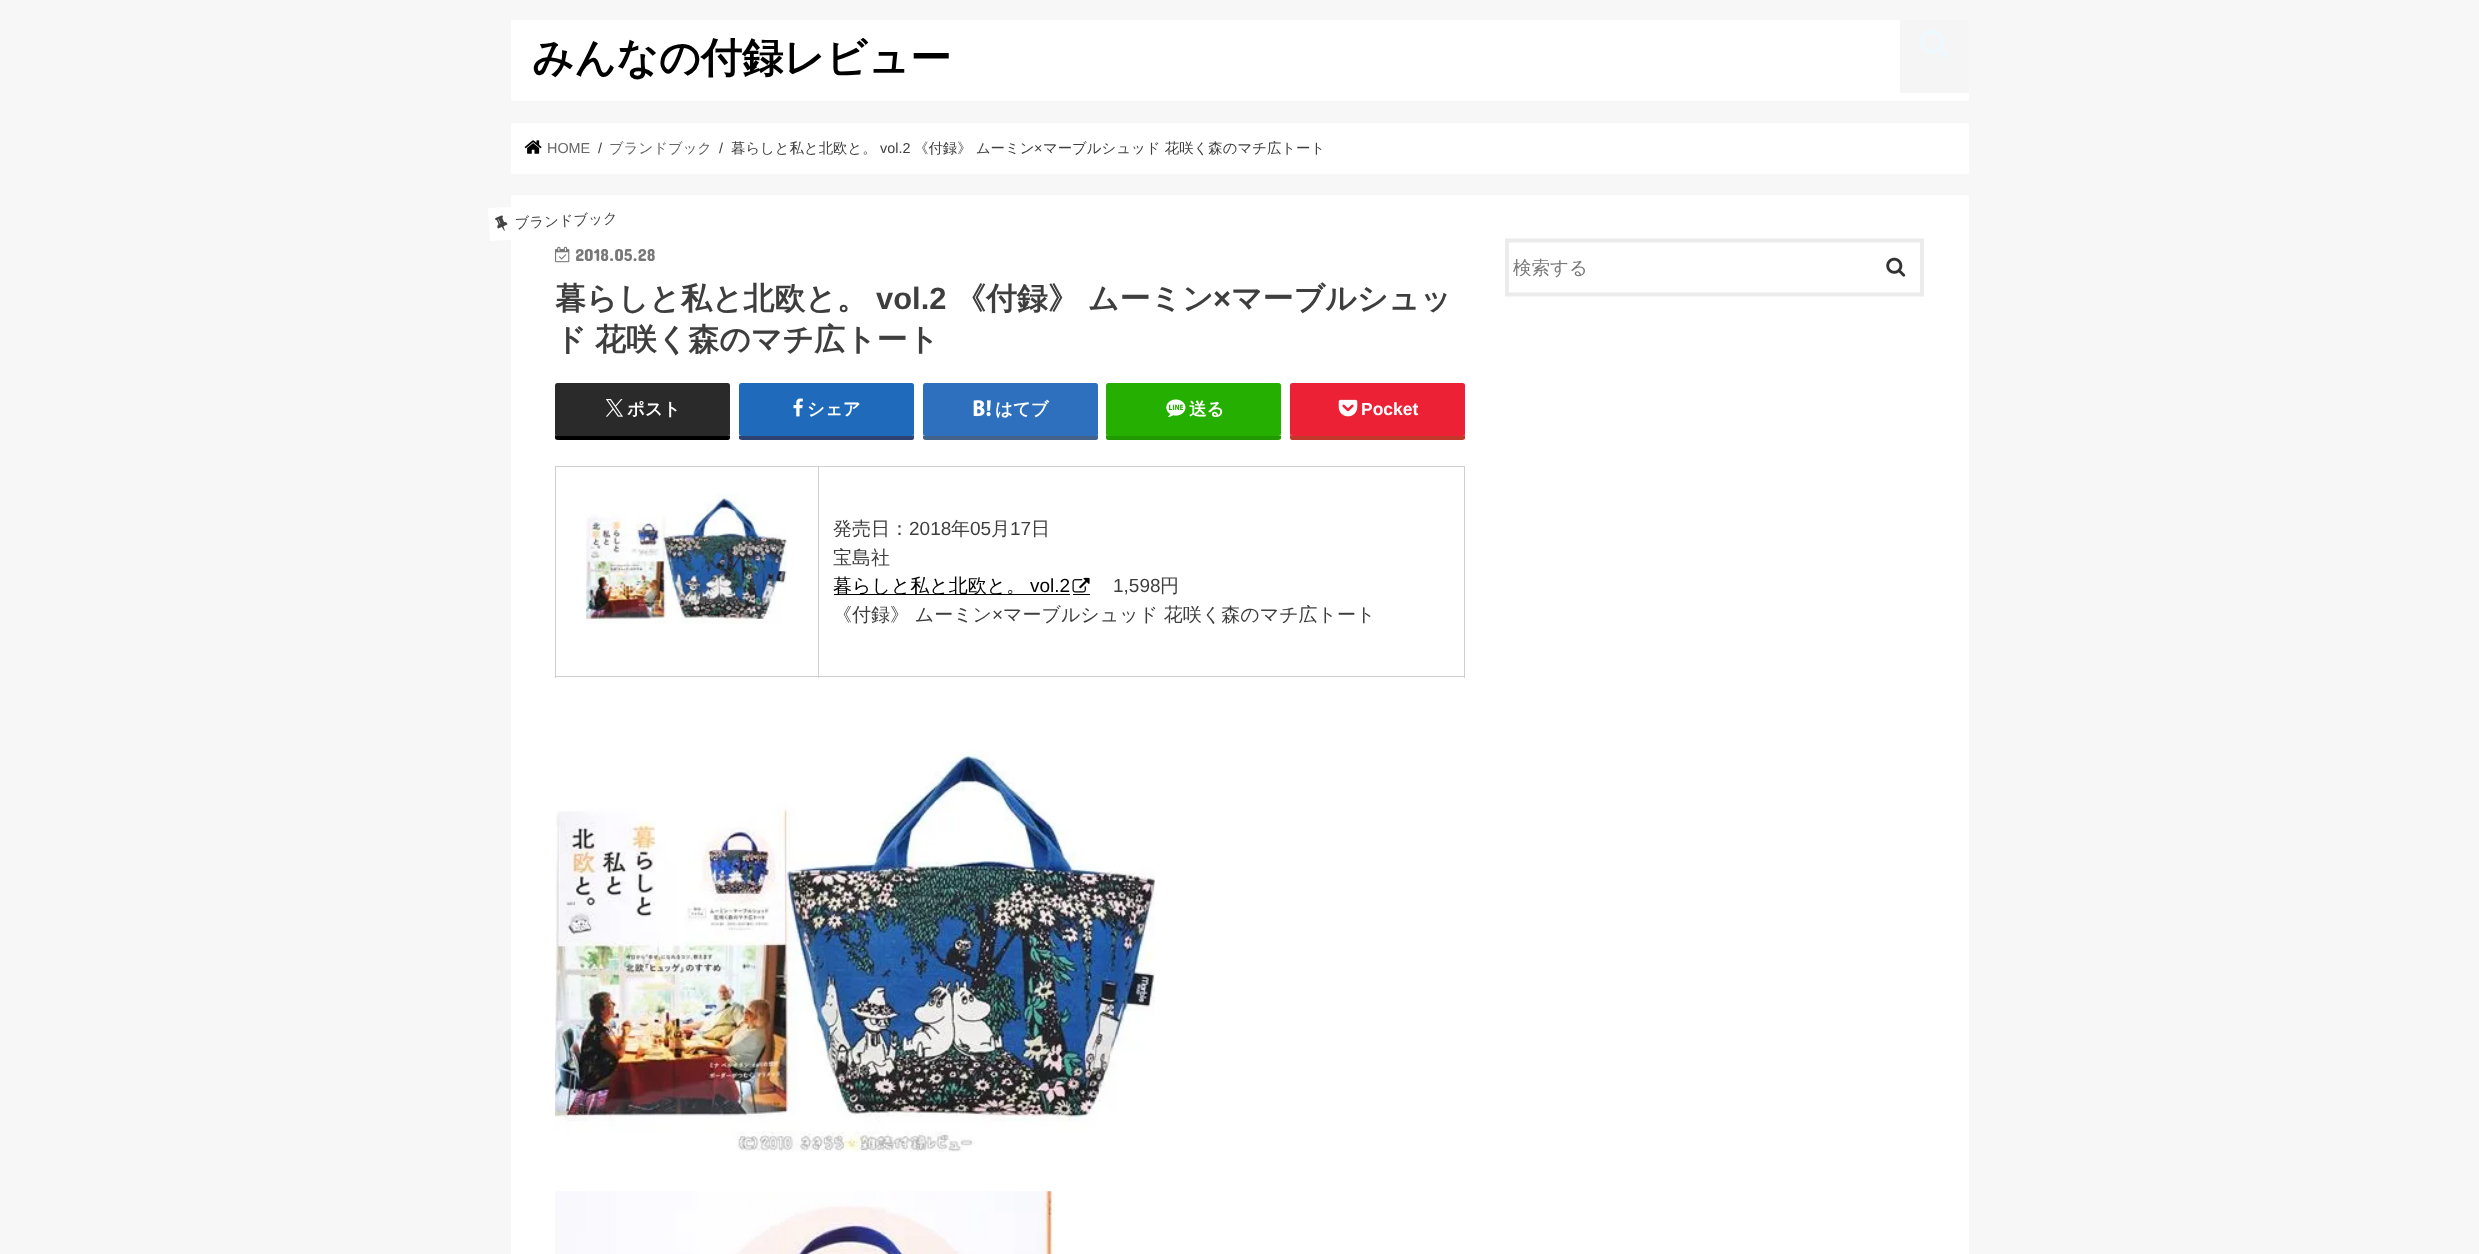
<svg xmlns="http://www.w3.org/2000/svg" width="2479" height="1254">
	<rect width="100%" height="100%" fill="#F7F7F7" />
	<rect x="511" y="20" width="1458" height="81" fill="#FFFFFF" />
	<text x="532" y="72" font-family="WenQuanYi Zen Hei" font-size="41.25" font-weight="700" fill="#000000">みんなの付録レビュー</text>
	<rect x="1900" y="20" width="69" height="73" fill="#F5F5F5" />
	<image x="1920" y="30" width="29" height="28" href="assets/img1.png" />
	<rect x="511" y="123" width="1458" height="51" fill="#DDDDDD" filter="blur(0.5px)" />
	<rect x="511" y="123" width="1458" height="51" fill="#FFFFFF" />
	<image x="524" y="140" width="18" height="14" href="assets/img2.png" />
	<text x="547" y="153" font-family="Liberation Sans" font-size="14.4" fill="#666666">HOME</text>
	<text x="598" y="153" font-family="Liberation Sans" font-size="14.4" fill="#3E3E3E">/</text>
	<text x="609" y="153" font-family="WenQuanYi Zen Hei" font-size="14.4" font-weight="500" fill="#666666">ブランドブック</text>
	<text x="719" y="153" font-family="Liberation Sans" font-size="14.4" fill="#3E3E3E">/</text>
	<text x="731" y="153" font-family="WenQuanYi Zen Hei" font-size="14.4" font-weight="500" fill="#3E3E3E">暮らしと私と北欧と。</text>
	<text x="880" y="153" font-family="Liberation Sans" font-size="14.4" fill="#3E3E3E">vol.2</text>
	<text x="914" y="153" font-family="WenQuanYi Zen Hei" font-size="14.4" font-weight="500" fill="#3E3E3E">《付録》 ムーミン</text>
	<text x="1034" y="153" font-family="Liberation Sans" font-size="14.4" fill="#3E3E3E">×</text>
	<text x="1043" y="153" font-family="WenQuanYi Zen Hei" font-size="14.4" font-weight="500" fill="#3E3E3E">マーブルシュッド 花咲く森のマチ広トート</text>
	<rect x="511" y="195" width="1458" height="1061" fill="#DDDDDD" filter="blur(0.5px)" />
	<rect x="511" y="195" width="1458" height="1059" fill="#FFFFFF" />
	<path d="M488 208L628 201L630 234L490 241Z" fill="#FFFFFF" />
	<image x="495" y="215" width="13" height="16" href="assets/img3.png" />
	<text x="515" y="228" transform="rotate(-3 515 228)" font-family="WenQuanYi Zen Hei" font-size="14.4" font-weight="500" fill="#444444">ブランドブック</text>
	<image x="555" y="246" width="15" height="17" href="assets/img4.png" />
	<text x="575" y="261" font-family="Concert One" font-size="17.5" fill="#787878">2018.05.28</text>
	<text x="555" y="309" font-family="WenQuanYi Zen Hei" font-size="30.9" font-weight="700" fill="#3E3E3E">暮らしと私と北欧と。</text>
	<text x="876" y="309" font-family="Liberation Sans" font-size="30.9" font-weight="700" fill="#3E3E3E">vol.2</text>
	<text x="955" y="309" font-family="WenQuanYi Zen Hei" font-size="30.9" font-weight="700" fill="#3E3E3E">《付録》 ムーミン</text>
	<text x="1213" y="309" font-family="Liberation Sans" font-size="30.9" font-weight="700" fill="#3E3E3E">×</text>
	<g font-family="WenQuanYi Zen Hei" font-size="30.9" font-weight="700" fill="#3E3E3E">
		<text x="1231" y="309">マーブルシュッ</text>
		<text x="555" y="350" word-spacing="-1">ド 花咲く森のマチ広トート</text>
	</g>
	<path d="M555 434V438C555 439 556 440 558 440H728C729 440 730 439 730 438V434C730 435 729 436 728 436H558L555 435Z" fill="#000000" />
	<rect x="555" y="383" width="175" height="53" rx="2.5" fill="#2A2A2A" />
	<image x="605" y="399" width="18" height="18" href="assets/img5.png" />
	<text x="627" y="415" font-family="WenQuanYi Zen Hei" font-size="17.5" font-weight="700" fill="#FFFFFF">ポスト</text>
	<path d="M739 435V438C739 439 740 440 742 440H912C913 440 914 439 914 438V387V434C914 435 913 436 911 436H741C740 436 739 436 739 435Z" fill="#2C4373" />
	<rect x="739" y="383" width="175" height="53" rx="2.5" fill="#1F6ABA" />
	<image x="793" y="398" width="10" height="19" href="assets/img6.png" />
	<text x="807" y="415" font-family="WenQuanYi Zen Hei" font-size="17.5" font-weight="700" fill="#FFFFFF">シェア</text>
	<path d="M923 435V438C923 439 924 440 926 440H1096C1097 440 1098 439 1098 438V388V387V434C1098 435 1096 436 1095 436H925C924 436 923 436 923 435Z" fill="#43638B" />
	<rect x="923" y="383" width="175" height="53" rx="2.5" fill="#2F70BE" />
	<image x="973" y="400" width="18" height="17" href="assets/img7.png" />
	<text x="995" y="415" font-family="WenQuanYi Zen Hei" font-size="17.5" font-weight="700" fill="#FFFFFF">はてブ</text>
	<path d="M1106 387V438C1106 439 1107 440 1108 440H1278C1280 440 1281 439 1281 438V435C1281 436 1280 436 1279 436H1109C1107 436 1106 435 1106 434Z" fill="#219900" />
	<rect x="1106" y="383" width="175" height="53" rx="2.5" fill="#25AF00" />
	<image x="1166" y="399" width="20" height="18" href="assets/img8.png" />
	<text x="1189" y="415" font-family="WenQuanYi Zen Hei" font-size="17.5" font-weight="700" fill="#FFFFFF">送る</text>
	<path d="M1290 434V438C1290 439 1291 440 1292 440H1462C1464 440 1465 439 1465 438V434C1465 435 1464 436 1462 436H1292L1290 435Z" fill="#C0392B" />
	<rect x="1290" y="383" width="175" height="53" rx="2.5" fill="#EC2136" />
	<image x="1338" y="399" width="20" height="18" href="assets/img9.png" />
	<text x="1361" y="415" font-family="Liberation Sans" font-size="17.5" font-weight="700" fill="#FFFFFF">Pocket</text>
	<rect x="818" y="466" width="647" height="1" fill="#CFCFCF" />
	<rect x="1464" y="466" width="1" height="212" fill="#CFCFCF" />
	<rect x="818" y="676" width="647" height="1" fill="#CFCFCF" />
	<rect x="818" y="466" width="1" height="212" fill="#CFCFCF" />
	<rect x="555" y="466" width="264" height="1" fill="#CFCFCF" />
	<rect x="555" y="676" width="264" height="1" fill="#CFCFCF" />
	<rect x="555" y="466" width="1" height="212" fill="#CFCFCF" />
	<image x="586" y="493" width="201" height="131" href="assets/img10.png" />
	<text x="833" y="535" font-family="WenQuanYi Zen Hei" font-size="19" font-weight="500" fill="#3E3E3E">発売日：</text>
	<text x="909" y="535" font-family="Liberation Sans" font-size="19" fill="#3E3E3E">2018</text>
	<text x="951" y="535" font-family="WenQuanYi Zen Hei" font-size="19" font-weight="500" fill="#3E3E3E">年</text>
	<text x="970" y="535" font-family="Liberation Sans" font-size="19" fill="#3E3E3E">05</text>
	<text x="991" y="535" font-family="WenQuanYi Zen Hei" font-size="19" font-weight="500" fill="#3E3E3E">月</text>
	<text x="1010" y="535" font-family="Liberation Sans" font-size="19" fill="#3E3E3E">17</text>
	<g font-family="WenQuanYi Zen Hei" font-size="19" font-weight="500" fill="#3E3E3E">
		<text x="1031" y="535">日</text>
		<text x="833" y="564">宝島社</text>
	</g>
	<rect x="834" y="594" width="236" height="1" fill="#000000" />
	<text x="833" y="592" font-family="WenQuanYi Zen Hei" font-size="19" font-weight="500" fill="#000000">暮らしと私と北欧と。</text>
	<text x="1030" y="592" font-family="Liberation Sans" font-size="19" fill="#000000">vol.2</text>
	<rect x="1073" y="594" width="17" height="1" fill="#000000" />
	<image x="1072" y="577" width="18" height="16" href="assets/img11.png" />
	<text x="1113" y="592" font-family="Liberation Sans" font-size="19" fill="#3E3E3E">1,598</text>
	<g font-family="WenQuanYi Zen Hei" font-size="19" font-weight="500" fill="#3E3E3E">
		<text x="1160" y="592">円</text>
		<text x="833" y="621">《付録》 ムーミン</text>
	</g>
	<text x="992" y="621" font-family="Liberation Sans" font-size="19" fill="#3E3E3E">×</text>
	<text x="1003" y="621" font-family="WenQuanYi Zen Hei" font-size="19" font-weight="500" fill="#3E3E3E">マーブルシュッド 花咲く森のマチ広トート</text>
	<image x="555" y="751" width="600" height="401" href="assets/img12.png" />
	<image x="555" y="1191" width="500" height="63" href="assets/img13.png" />
	<path d="M1507 240.5H1922V294.5H1507Z" fill="none" stroke="#EBEBEB" stroke-width="3.8" />
	<text x="1513" y="274" font-family="WenQuanYi Zen Hei" font-size="18.5" font-weight="500" fill="#787878">検索する</text>
	<image x="1886" y="257" width="20" height="20" href="assets/img14.png" />
</svg>
